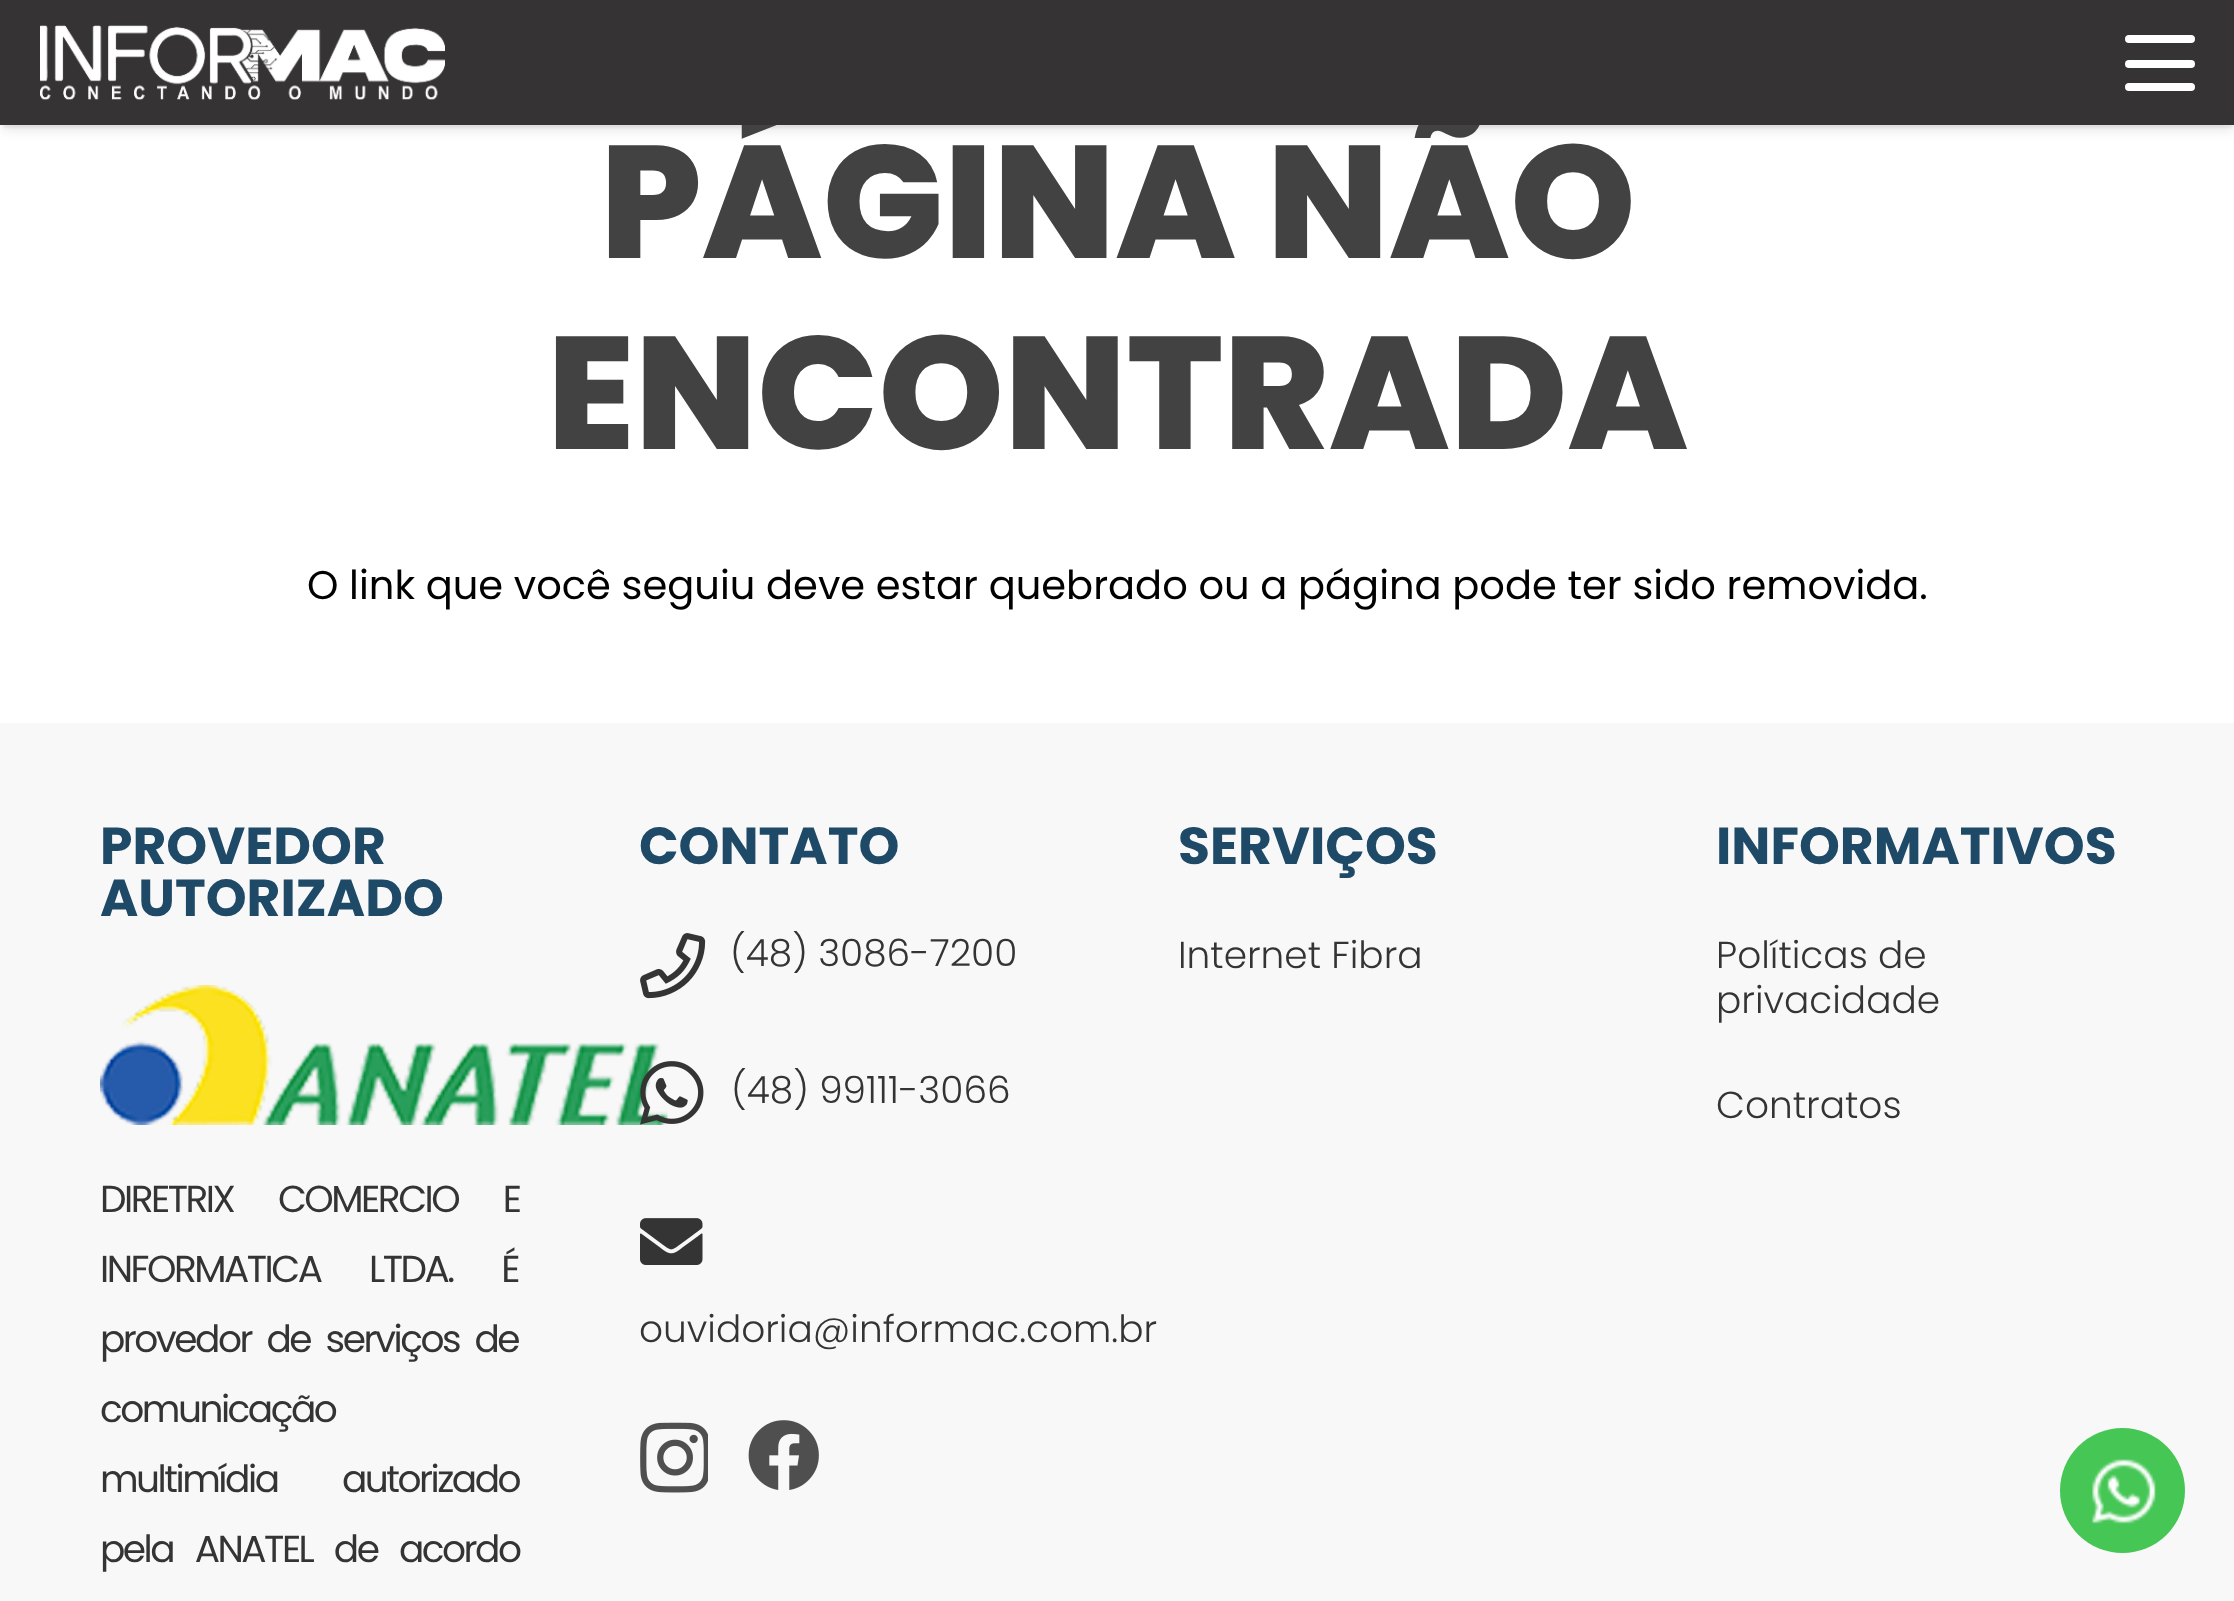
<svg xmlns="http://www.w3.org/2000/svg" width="2234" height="1601">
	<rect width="100%" height="100%" fill="#FFFFFF" />
	<rect x="3" y="8" width="2230" height="120" fill="#000000" fill-opacity="0.05" filter="blur(1px)" />
	<rect x="3" y="10" width="2230" height="120" fill="#000000" fill-opacity="0.1" filter="blur(6px)" />
	<text x="600" y="258" font-family="Poppins" font-size="160" font-weight="800" fill="#424242">PÁGINA NÃO</text>
	<rect x="0" y="0" width="2234" height="125" fill="#363334" />
	<image x="40" y="25" width="405" height="75" href="assets/img1.png" />
	<rect x="2125" y="60" width="70" height="8" rx="4" fill="#FFFFFF" />
	<rect x="2125" y="35" width="70" height="8" rx="4" fill="#FFFFFF" />
	<rect x="2125" y="83" width="70" height="8" rx="4" fill="#FFFFFF" />
	<text x="547" y="449" font-family="Poppins" font-size="160" font-weight="800" fill="#424242">ENCONTRADA</text>
	<text x="307" y="599" font-family="Poppins" font-size="40" fill="#000000">O link que você seguiu deve estar quebrado ou a página pode ter sido removida.</text>
	<rect x="0" y="723" width="2234" height="878" fill="#F8F8F8" />
	<g font-family="Poppins" font-size="52" font-weight="700" fill="#1E4A67">
		<text x="100" y="864">PROVEDOR</text>
		<text x="100" y="916">AUTORIZADO</text>
	</g>
	<image x="100" y="985" width="568" height="140" href="assets/img2.png" />
	<g font-family="Poppins" font-size="37.5" letter-spacing="-2.5" fill="#343434">
		<text x="100" y="1212" word-spacing="37">DIRETRIX COMERCIO E</text>
		<text x="100" y="1282" word-spacing="41">INFORMATICA LTDA. É</text>
		<text x="100" y="1352" word-spacing="8">provedor de serviços de</text>
		<text x="100" y="1422">comunicação</text>
		<text x="100" y="1492" word-spacing="57">multimídia autorizado</text>
		<text x="100" y="1562" word-spacing="14">pela ANATEL de acordo</text>
	</g>
	<text x="639" y="864" font-family="Poppins" font-size="52" font-weight="700" fill="#1E4A67">CONTATO</text>
	<image x="640" y="933" width="66" height="66" href="assets/img3.png" />
	<text x="730" y="966" font-family="Poppins" font-size="37.5" font-weight="300" fill="#343434">(48) 3086-7200</text>
	<image x="640" y="1061" width="64" height="64" href="assets/img4.png" />
	<text x="731" y="1103" font-family="Poppins" font-size="37.5" font-weight="300" fill="#343434">(48) 99111-3066</text>
	<image x="640" y="1218" width="63" height="47" href="assets/img5.png" />
	<text x="639" y="1342" font-family="Poppins" font-size="37.5" font-weight="300" fill="#343434">ouvidoria@informac.com.br</text>
	<image x="640" y="1422" width="68" height="71" href="assets/img6.png" />
	<image x="748" y="1420" width="71" height="70" href="assets/img7.png" />
	<text x="1178" y="864" font-family="Poppins" font-size="52" font-weight="700" fill="#1E4A67">SERVIÇOS</text>
	<text x="1178" y="968" font-family="Poppins" font-size="37.5" font-weight="300" fill="#343434">Internet Fibra</text>
	<text x="1716" y="864" font-family="Poppins" font-size="52" font-weight="700" fill="#1E4A67">INFORMATIVOS</text>
	<g font-family="Poppins" font-size="37.5" font-weight="300" fill="#343434">
		<text x="1716" y="968">Políticas de</text>
		<text x="1716" y="1013">privacidade</text>
		<text x="1716" y="1118">Contratos</text>
	</g>
	<circle cx="2122.5" cy="1490.5" r="62.5" fill="#46C655" />
	<image x="2092" y="1459" width="64" height="65" href="assets/img8.png" />
</svg>
